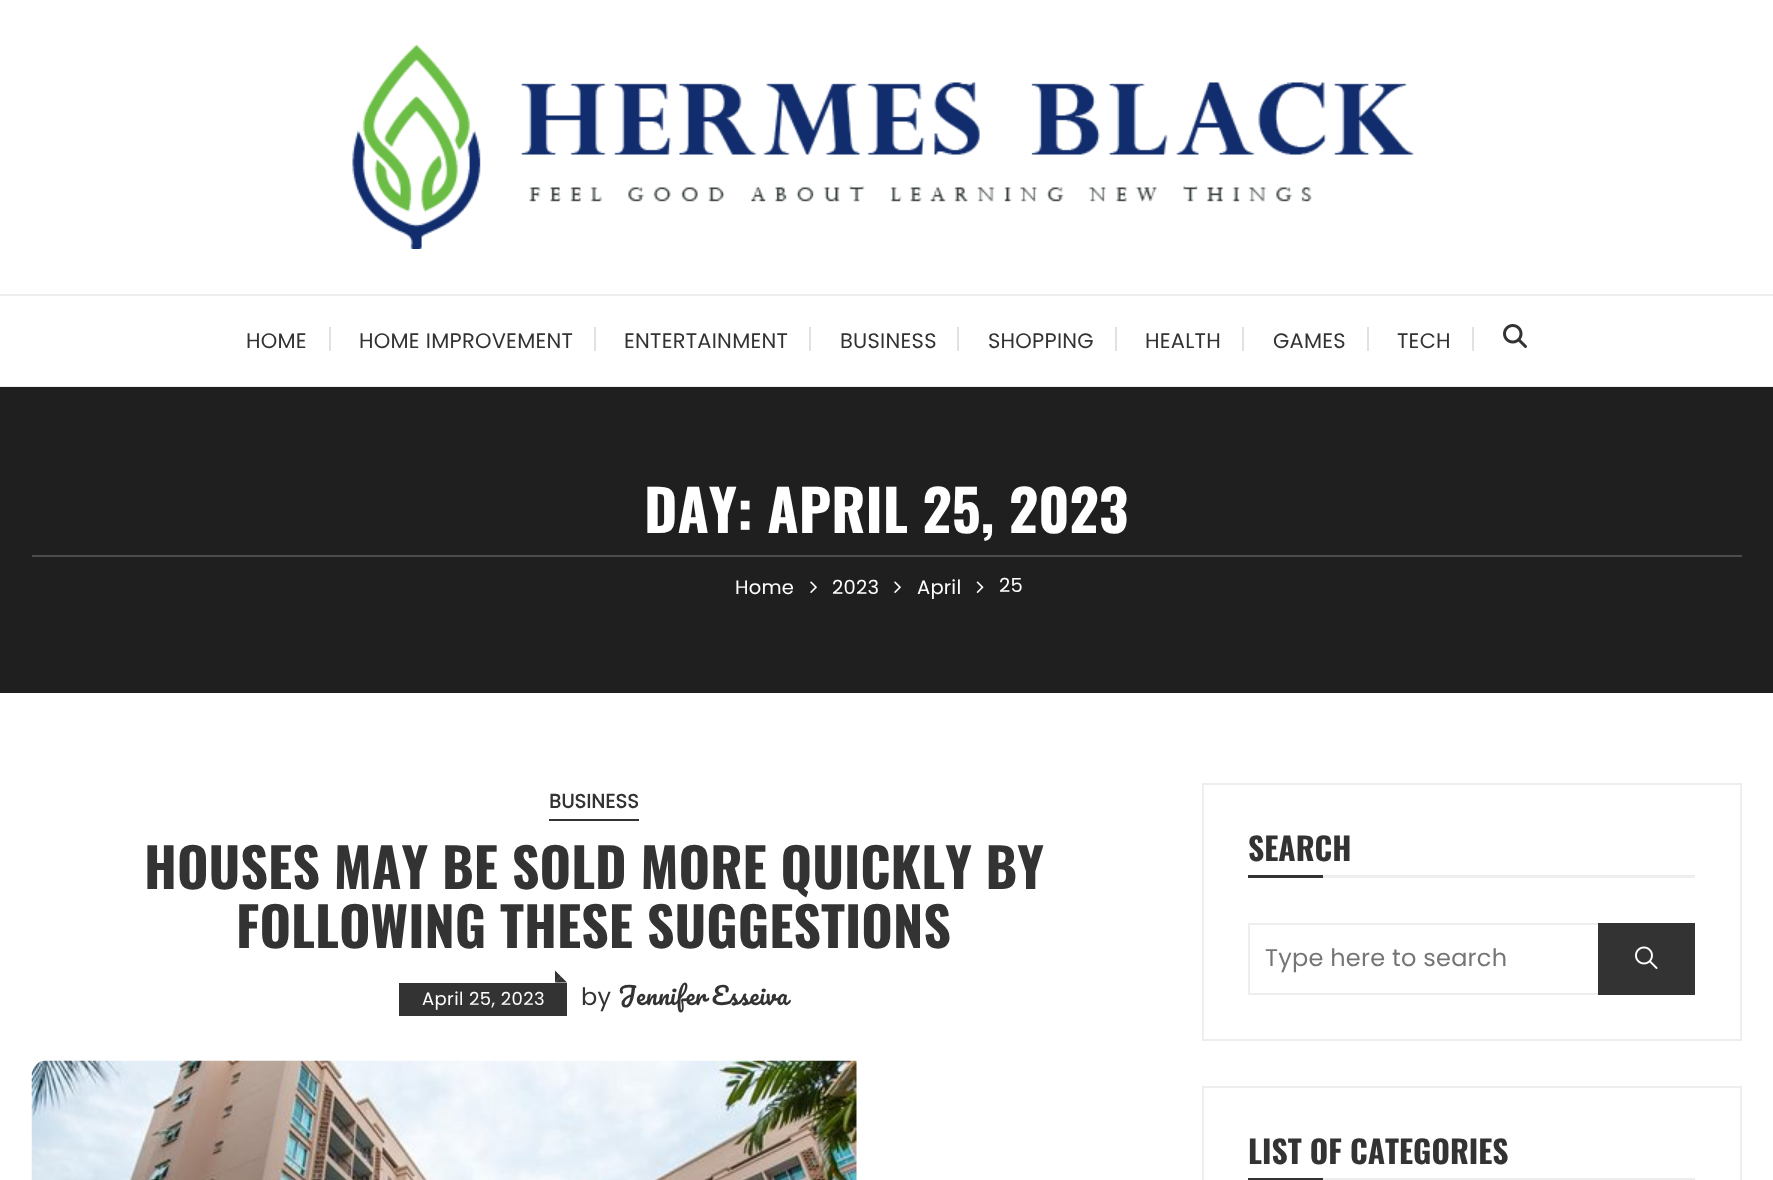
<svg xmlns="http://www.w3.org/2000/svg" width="1773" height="1180">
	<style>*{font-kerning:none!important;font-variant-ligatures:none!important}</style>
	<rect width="100%" height="100%" fill="#FFFFFF" />
	<image x="352" y="45" width="1062" height="204" href="assets/img1.png" />
	<rect x="0" y="294" width="1773" height="2" fill="#EEEEEE" />
	<rect x="0" y="386" width="1773" height="1" fill="#EEEEEE" />
	<text x="246" y="348" font-family="Poppins" font-size="21" letter-spacing="0.25" fill="#333333">HOME</text>
	<rect x="329" y="327" width="2" height="24" fill="#E1E1E1" />
	<text x="359" y="348" font-family="Poppins" font-size="21" letter-spacing="0.25" fill="#333333">HOME IMPROVEMENT</text>
	<rect x="594" y="327" width="2" height="24" fill="#E1E1E1" />
	<text x="624" y="348" font-family="Poppins" font-size="21" letter-spacing="0.25" fill="#333333">ENTERTAINMENT</text>
	<rect x="809" y="327" width="2" height="24" fill="#E1E1E1" />
	<text x="840" y="348" font-family="Poppins" font-size="21" letter-spacing="0.25" fill="#333333">BUSINESS</text>
	<rect x="957" y="327" width="2" height="24" fill="#E1E1E1" />
	<text x="988" y="348" font-family="Poppins" font-size="21" letter-spacing="0.25" fill="#333333">SHOPPING</text>
	<rect x="1115" y="327" width="2" height="24" fill="#E1E1E1" />
	<text x="1145" y="348" font-family="Poppins" font-size="21" letter-spacing="0.25" fill="#333333">HEALTH</text>
	<rect x="1242" y="327" width="2" height="24" fill="#E1E1E1" />
	<text x="1273" y="348" font-family="Poppins" font-size="21" letter-spacing="0.25" fill="#333333">GAMES</text>
	<rect x="1367" y="327" width="2" height="24" fill="#E1E1E1" />
	<text x="1397" y="348" font-family="Poppins" font-size="21" letter-spacing="0.25" fill="#333333">TECH</text>
	<rect x="1472" y="327" width="2" height="24" fill="#E1E1E1" />
	<image x="1503" y="324" width="24" height="24" href="assets/img2.png" />
	<rect x="0" y="387" width="1773" height="306" fill="#1F1F1F" />
	<rect x="32" y="555" width="1710" height="2" fill="#4C4C4C" />
	<text x="644" y="533" font-family="Oswald" font-size="57" font-weight="700" fill="#FFFFFF">DAY: APRIL 25, 2023</text>
	<text x="735" y="594" font-family="Poppins" font-size="19.5" letter-spacing="0.25" fill="#FFFFFF">Home</text>
	<image x="810" y="581" width="7" height="12" href="assets/img3.png" />
	<text x="832" y="594" font-family="Poppins" font-size="19.5" letter-spacing="0.25" fill="#FFFFFF">2023</text>
	<image x="894" y="581" width="7" height="12" href="assets/img3.png" />
	<text x="917" y="594" font-family="Poppins" font-size="19.5" letter-spacing="0.25" fill="#FFFFFF">April</text>
	<image x="976" y="581" width="8" height="12" href="assets/img4.png" />
	<text x="999" y="592" font-family="Poppins" font-size="19.5" letter-spacing="0.25" fill="#FFFFFF">25</text>
	<rect x="549" y="819" width="90" height="2" fill="#333333" />
	<text x="549" y="808" font-family="Poppins" font-size="19.5" font-weight="700" letter-spacing="0.25" fill="#333333">BUSINESS</text>
	<g font-family="Oswald" font-size="54" font-weight="700" fill="#333333">
		<text x="144" y="889">HOUSES MAY BE SOLD MORE QUICKLY BY</text>
		<text x="236" y="948">FOLLOWING THESE SUGGESTIONS</text>
	</g>
	<rect x="399" y="983" width="168" height="33" fill="#333333" />
	<path d="M567 982.5H555L561 976.5Z" fill="#333333" />
	<path d="M555 982.5V970.5L561 976.5Z" fill="#333333" />
	<text x="422" y="1005" font-family="Poppins" font-size="18" letter-spacing="0.4" fill="#FFFFFF">April 25, 2023</text>
	<text x="581" y="1005" font-family="Poppins" font-size="24" letter-spacing="0.25" fill="#333333">by</text>
	<text x="618" y="1005" word-spacing="-1" font-family="Pacifico" font-size="24" letter-spacing="0.25" fill="#333333">Jennifer Esseiva</text>
	<image x="31" y="1060" width="826" height="120" href="assets/img5.png" />
	<rect x="1203" y="784" width="538" height="256" fill="none" stroke="#EEEEEE" stroke-width="2" />
	<rect x="1323" y="875" width="372" height="3" fill="#EEEEEE" />
	<text x="1248" y="861" font-family="Oswald" font-size="31.5" font-weight="700" fill="#333333">SEARCH</text>
	<rect x="1248" y="875" width="75" height="3" fill="#333333" />
	<rect x="1249" y="924" width="445" height="70" fill="none" stroke="#EEEEEE" stroke-width="2" />
	<text x="1265" y="966" font-family="Poppins" font-size="24" letter-spacing="0.25" fill="#757575">Type here to search</text>
	<rect x="1598" y="923" width="97" height="72" fill="#333333" />
	<image x="1635" y="946" width="23" height="23" href="assets/img6.png" />
	<rect x="1203" y="1087" width="538" height="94" fill="none" stroke="#EEEEEE" stroke-width="2" />
	<rect x="1323" y="1178" width="372" height="2" fill="#EEEEEE" />
	<text x="1248" y="1164" font-family="Oswald" font-size="31.5" font-weight="700" fill="#333333">LIST OF CATEGORIES</text>
	<rect x="1248" y="1178" width="75" height="2" fill="#333333" />
</svg>
